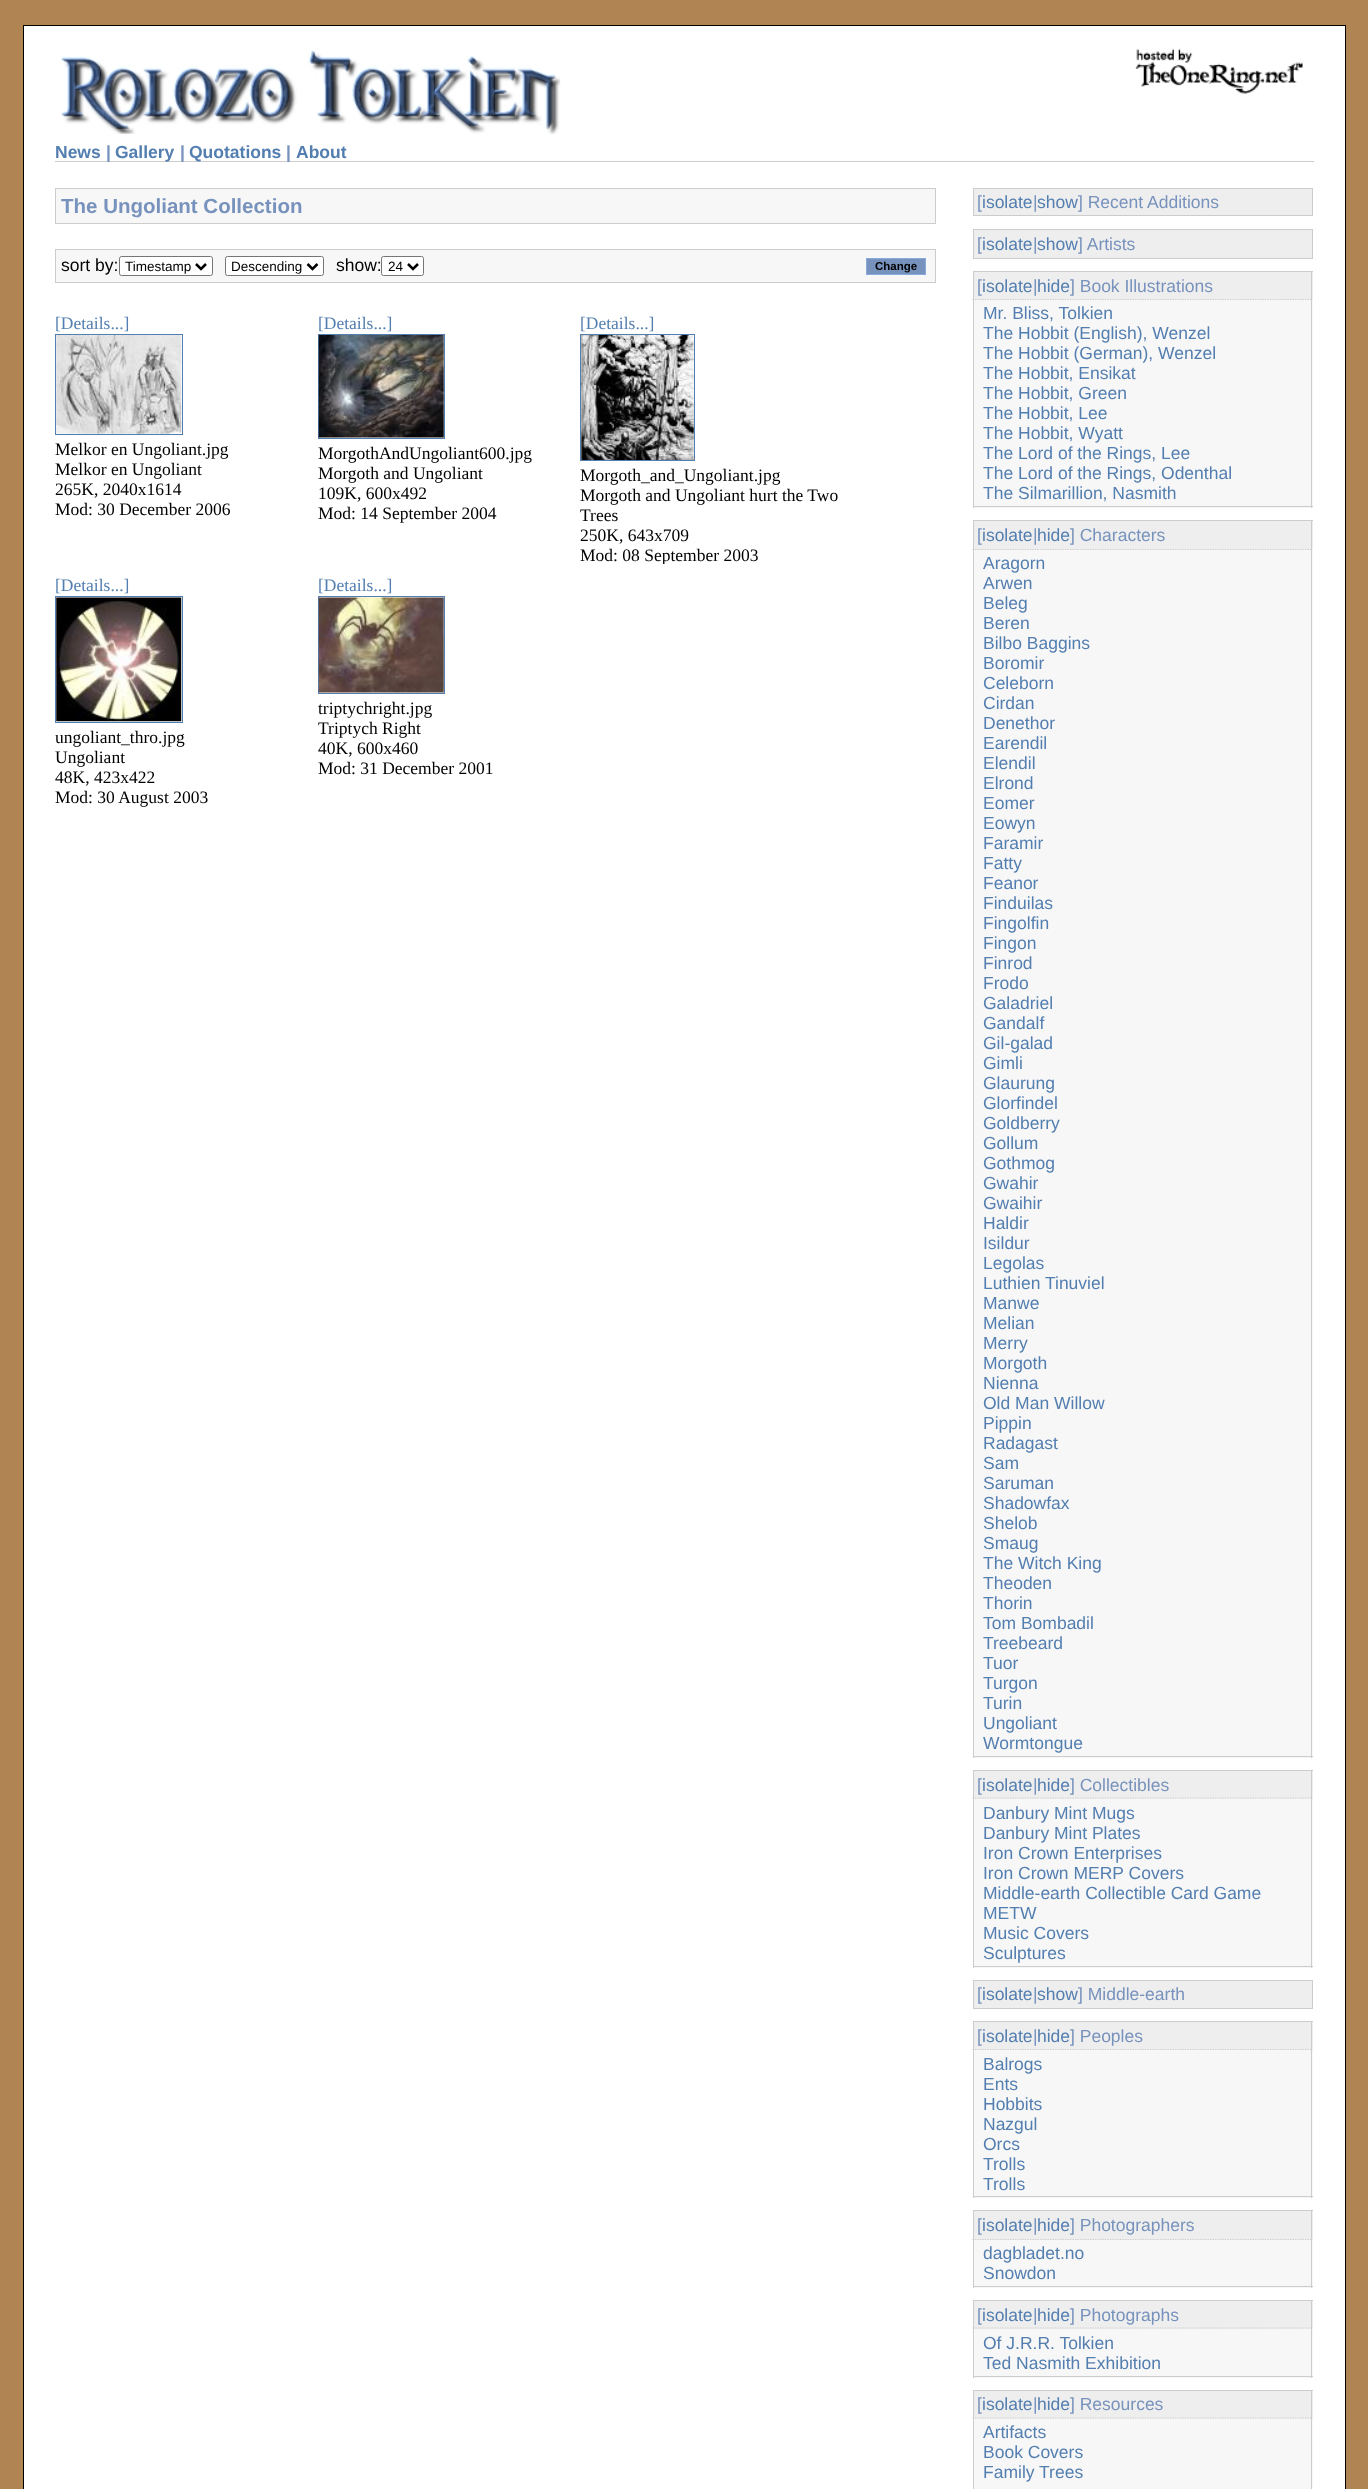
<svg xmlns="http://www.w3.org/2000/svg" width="1368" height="2489">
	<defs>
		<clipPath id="clip1"><rect x="580" y="314" width="263" height="250" /></clipPath>
		<clipPath id="clip2"><rect x="318" y="576" width="262" height="250" /></clipPath>
	</defs>
	<rect width="100%" height="100%" fill="#B08553" />
	<rect x="23.5" y="25.5" width="1322" height="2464" fill="#FFFFFF" stroke="#000000" />
	<image x="61" y="50" width="500" height="84" href="assets/img1.png" />
	<image x="1135" y="48" width="168" height="46" href="assets/img2.png" />
	<rect x="55" y="161" width="1259" height="1" fill="#CCCCCC" />
	<text x="55" y="158" font-family="Liberation Sans" font-size="17.5" font-weight="700" fill="#537EB0">News</text>
	<text x="106" y="158" font-family="Liberation Sans" font-size="17.5" font-weight="700" fill="#7792BC">|</text>
	<text x="115" y="158" font-family="Liberation Sans" font-size="17.5" font-weight="700" fill="#537EB0">Gallery</text>
	<text x="180" y="158" font-family="Liberation Sans" font-size="17.5" font-weight="700" fill="#7792BC">|</text>
	<text x="189" y="158" font-family="Liberation Sans" font-size="17.5" font-weight="700" fill="#537EB0">Quotations</text>
	<text x="286" y="158" font-family="Liberation Sans" font-size="17.5" font-weight="700" fill="#7792BC">|</text>
	<text x="296" y="158" font-family="Liberation Sans" font-size="17.5" font-weight="700" fill="#537EB0">About</text>
	<rect x="55.5" y="188.5" width="880" height="35" fill="#F7F7F7" stroke="#CCCCCC" />
	<text x="61" y="213" font-family="Liberation Sans" font-size="20.5" font-weight="700" fill="#7792BC">The Ungoliant Collection</text>
	<rect x="55.5" y="249.5" width="880" height="33" fill="#F7F7F7" stroke="#CCCCCC" />
	<text x="61" y="271" font-family="Liberation Sans" font-size="17.5" fill="#000000">sort by:</text>
	<rect x="119.5" y="256.5" width="93" height="19" rx="2" fill="#FFFFFF" stroke="#767676" />
	<path d="M196 264L201 269L206 264" fill="none" stroke="#000000" stroke-width="2.5" />
	<text x="125" y="271" font-family="Liberation Sans" font-size="13.5" fill="#000000">Timestamp</text>
	<rect x="225.5" y="256.5" width="98" height="19" rx="2" fill="#FFFFFF" stroke="#767676" />
	<path d="M307.5 264L312.5 269L317.5 264" fill="none" stroke="#000000" stroke-width="2.5" />
	<text x="231" y="271" font-family="Liberation Sans" font-size="13.5" fill="#000000">Descending</text>
	<text x="336" y="271" font-family="Liberation Sans" font-size="17.5" fill="#000000">show:</text>
	<rect x="381.5" y="256.5" width="42" height="19" rx="2" fill="#FFFFFF" stroke="#767676" />
	<path d="M408 264L413 269L418 264" fill="none" stroke="#000000" stroke-width="2.5" />
	<text x="388" y="271" font-family="Liberation Sans" font-size="13.5" fill="#000000">24</text>
	<rect x="866.5" y="258.5" width="59" height="16" fill="#7792BC" stroke="#88AADD" />
	<text x="875" y="270" font-family="Liberation Sans" font-size="11.5" font-weight="700" fill="#000000">Change</text>
	<text x="55" y="329" font-family="Liberation Serif" font-size="17.5" fill="#537EB0">[Details...]</text>
	<rect x="55.5" y="334.5" width="127" height="100" fill="none" stroke="#537EB0" />
	<image x="56" y="335" width="126" height="99" href="assets/img3.png" />
	<g font-family="Liberation Serif" font-size="17.5" fill="#000000">
		<text x="55" y="455">Melkor en Ungoliant.jpg</text>
		<text x="55" y="475">Melkor en Ungoliant</text>
		<text x="55" y="495">265K, 2040x1614</text>
		<text x="55" y="515">Mod: 30 December 2006</text>
	</g>
	<text x="318" y="329" font-family="Liberation Serif" font-size="17.5" fill="#537EB0">[Details...]</text>
	<rect x="318.5" y="334.5" width="126" height="104" fill="none" stroke="#537EB0" />
	<image x="318" y="335" width="126" height="103" href="assets/img4.png" />
	<g font-family="Liberation Serif" font-size="17.5" fill="#000000">
		<text x="318" y="459">MorgothAndUngoliant600.jpg</text>
		<text x="318" y="479">Morgoth and Ungoliant</text>
		<text x="318" y="499">109K, 600x492</text>
		<text x="318" y="519">Mod: 14 September 2004</text>
	</g>
	<text x="580" y="329" font-family="Liberation Serif" font-size="17.5" fill="#537EB0">[Details...]</text>
	<rect x="580.5" y="334.5" width="114" height="126" fill="none" stroke="#537EB0" />
	<image x="581" y="335" width="113" height="125" href="assets/img5.png" />
	<g font-family="Liberation Serif" font-size="17.5" fill="#000000">
		<text x="580" y="481">Morgoth_and_Ungoliant.jpg</text>
		<text x="580" y="501">Morgoth and Ungoliant hurt the Two</text>
		<text x="580" y="521">Trees</text>
		<text x="580" y="541">250K, 643x709</text>
	</g>
	<g clip-path="url(#clip1)">
		<text x="580" y="561" font-family="Liberation Serif" font-size="17.5" fill="#000000">Mod: 08 September 2003</text>
	</g>
	<text x="55" y="591" font-family="Liberation Serif" font-size="17.5" fill="#537EB0">[Details...]</text>
	<rect x="55.5" y="596.5" width="127" height="126" fill="none" stroke="#537EB0" />
	<image x="56" y="597" width="126" height="125" href="assets/img6.png" />
	<g font-family="Liberation Serif" font-size="17.5" fill="#000000">
		<text x="55" y="743">ungoliant_thro.jpg</text>
		<text x="55" y="763">Ungoliant</text>
		<text x="55" y="783">48K, 423x422</text>
		<text x="55" y="803">Mod: 30 August 2003</text>
	</g>
	<text x="318" y="591" font-family="Liberation Serif" font-size="17.5" fill="#537EB0">[Details...]</text>
	<rect x="318.5" y="596.5" width="126" height="97" fill="none" stroke="#537EB0" />
	<image x="318" y="597" width="126" height="96" href="assets/img7.png" />
	<text x="318" y="714" font-family="Liberation Serif" font-size="17.5" fill="#000000">triptychright.jpg</text>
	<g clip-path="url(#clip2)">
		<text x="318" y="734" font-family="Liberation Serif" font-size="17.5" fill="#000000">Triptych Right</text>
	</g>
	<g font-family="Liberation Serif" font-size="17.5" fill="#000000">
		<text x="318" y="754">40K, 600x460</text>
		<text x="318" y="774">Mod: 31 December 2001</text>
	</g>
	<rect x="973.5" y="188.5" width="339" height="27" fill="#EEEEEE" stroke="#CCCCCC" />
	<text x="977" y="208" font-family="Liberation Sans" font-size="17.5" fill="#7792BC">[</text>
	<text x="982" y="208" font-family="Liberation Sans" font-size="17.5" fill="#537EB0">isolate</text>
	<text x="1033" y="208" font-family="Liberation Sans" font-size="17.5" fill="#7792BC">|</text>
	<text x="1037" y="208" font-family="Liberation Sans" font-size="17.5" fill="#537EB0">show</text>
	<text x="1078" y="208" font-family="Liberation Sans" font-size="17.5" fill="#7792BC">] Recent Additions</text>
	<rect x="973.5" y="229.5" width="339" height="29" fill="#EEEEEE" stroke="#CCCCCC" />
	<text x="977" y="250" font-family="Liberation Sans" font-size="17.5" fill="#7792BC">[</text>
	<text x="982" y="250" font-family="Liberation Sans" font-size="17.5" fill="#537EB0">isolate</text>
	<text x="1033" y="250" font-family="Liberation Sans" font-size="17.5" fill="#7792BC">|</text>
	<text x="1037" y="250" font-family="Liberation Sans" font-size="17.5" fill="#537EB0">show</text>
	<text x="1078" y="250" font-family="Liberation Sans" font-size="17.5" fill="#7792BC">] Artists</text>
	<rect x="974" y="272" width="339" height="28" fill="#EEEEEE" />
	<rect x="973" y="271" width="340" height="1" fill="#CCCCCC" />
	<rect x="1311" y="271" width="1" height="29" fill="#CCCCCC" />
	<path d="M972.5 299.5H1312.5" fill="none" stroke="#CCCCCC" stroke-width="1.2" stroke-dasharray="1.25 1.25" />
	<rect x="973" y="271" width="1" height="29" fill="#CCCCCC" />
	<text x="977" y="292" font-family="Liberation Sans" font-size="17.5" fill="#7792BC">[</text>
	<text x="982" y="292" font-family="Liberation Sans" font-size="17.5" fill="#537EB0">isolate</text>
	<text x="1033" y="292" font-family="Liberation Sans" font-size="17.5" fill="#7792BC">|</text>
	<text x="1037" y="292" font-family="Liberation Sans" font-size="17.5" fill="#537EB0">hide</text>
	<text x="1070" y="292" font-family="Liberation Sans" font-size="17.5" fill="#7792BC">] Book Illustrations</text>
	<rect x="974" y="300" width="339" height="208" fill="#F7F7F7" />
	<rect x="1311" y="300" width="1" height="208" fill="#CCCCCC" />
	<rect x="973" y="506" width="340" height="1" fill="#CCCCCC" />
	<rect x="973" y="300" width="1" height="208" fill="#CCCCCC" />
	<g font-family="Liberation Sans" font-size="17.5" fill="#537EB0">
		<text x="983" y="319">Mr. Bliss, Tolkien</text>
		<text x="983" y="339">The Hobbit (English), Wenzel</text>
		<text x="983" y="359">The Hobbit (German), Wenzel</text>
		<text x="983" y="379">The Hobbit, Ensikat</text>
		<text x="983" y="399">The Hobbit, Green</text>
		<text x="983" y="419">The Hobbit, Lee</text>
		<text x="983" y="439">The Hobbit, Wyatt</text>
		<text x="983" y="459">The Lord of the Rings, Lee</text>
		<text x="983" y="479">The Lord of the Rings, Odenthal</text>
		<text x="983" y="499">The Silmarillion, Nasmith</text>
	</g>
	<rect x="974" y="521" width="339" height="29" fill="#EEEEEE" />
	<rect x="973" y="520" width="340" height="1" fill="#CCCCCC" />
	<rect x="1311" y="520" width="1" height="30" fill="#CCCCCC" />
	<path d="M972.5 549.5H1312.5" fill="none" stroke="#CCCCCC" stroke-width="1.2" stroke-dasharray="1.25 1.25" />
	<rect x="973" y="520" width="1" height="30" fill="#CCCCCC" />
	<text x="977" y="541" font-family="Liberation Sans" font-size="17.5" fill="#7792BC">[</text>
	<text x="982" y="541" font-family="Liberation Sans" font-size="17.5" fill="#537EB0">isolate</text>
	<text x="1033" y="541" font-family="Liberation Sans" font-size="17.5" fill="#7792BC">|</text>
	<text x="1037" y="541" font-family="Liberation Sans" font-size="17.5" fill="#537EB0">hide</text>
	<text x="1070" y="541" font-family="Liberation Sans" font-size="17.5" fill="#7792BC">] Characters</text>
	<rect x="974" y="550" width="339" height="1208" fill="#F7F7F7" />
	<rect x="1311" y="550" width="1" height="1208" fill="#CCCCCC" />
	<rect x="973" y="1756" width="340" height="1" fill="#CCCCCC" />
	<rect x="973" y="550" width="1" height="1208" fill="#CCCCCC" />
	<g font-family="Liberation Sans" font-size="17.5" fill="#537EB0">
		<text x="983" y="569">Aragorn</text>
		<text x="983" y="589">Arwen</text>
		<text x="983" y="609">Beleg</text>
		<text x="983" y="629">Beren</text>
		<text x="983" y="649">Bilbo Baggins</text>
		<text x="983" y="669">Boromir</text>
		<text x="983" y="689">Celeborn</text>
		<text x="983" y="709">Cirdan</text>
		<text x="983" y="729">Denethor</text>
		<text x="983" y="749">Earendil</text>
		<text x="983" y="769">Elendil</text>
		<text x="983" y="789">Elrond</text>
		<text x="983" y="809">Eomer</text>
		<text x="983" y="829">Eowyn</text>
		<text x="983" y="849">Faramir</text>
		<text x="983" y="869">Fatty</text>
		<text x="983" y="889">Feanor</text>
		<text x="983" y="909">Finduilas</text>
		<text x="983" y="929">Fingolfin</text>
		<text x="983" y="949">Fingon</text>
		<text x="983" y="969">Finrod</text>
		<text x="983" y="989">Frodo</text>
		<text x="983" y="1009">Galadriel</text>
		<text x="983" y="1029">Gandalf</text>
		<text x="983" y="1049">Gil-galad</text>
		<text x="983" y="1069">Gimli</text>
		<text x="983" y="1089">Glaurung</text>
		<text x="983" y="1109">Glorfindel</text>
		<text x="983" y="1129">Goldberry</text>
		<text x="983" y="1149">Gollum</text>
		<text x="983" y="1169">Gothmog</text>
		<text x="983" y="1189">Gwahir</text>
		<text x="983" y="1209">Gwaihir</text>
		<text x="983" y="1229">Haldir</text>
		<text x="983" y="1249">Isildur</text>
		<text x="983" y="1269">Legolas</text>
		<text x="983" y="1289">Luthien Tinuviel</text>
		<text x="983" y="1309">Manwe</text>
		<text x="983" y="1329">Melian</text>
		<text x="983" y="1349">Merry</text>
		<text x="983" y="1369">Morgoth</text>
		<text x="983" y="1389">Nienna</text>
		<text x="983" y="1409">Old Man Willow</text>
		<text x="983" y="1429">Pippin</text>
		<text x="983" y="1449">Radagast</text>
		<text x="983" y="1469">Sam</text>
		<text x="983" y="1489">Saruman</text>
		<text x="983" y="1509">Shadowfax</text>
		<text x="983" y="1529">Shelob</text>
		<text x="983" y="1549">Smaug</text>
		<text x="983" y="1569">The Witch King</text>
		<text x="983" y="1589">Theoden</text>
		<text x="983" y="1609">Thorin</text>
		<text x="983" y="1629">Tom Bombadil</text>
		<text x="983" y="1649">Treebeard</text>
		<text x="983" y="1669">Tuor</text>
		<text x="983" y="1689">Turgon</text>
		<text x="983" y="1709">Turin</text>
		<text x="983" y="1729">Ungoliant</text>
		<text x="983" y="1749">Wormtongue</text>
	</g>
	<rect x="974" y="1771" width="339" height="28" fill="#EEEEEE" />
	<rect x="973" y="1770" width="340" height="1" fill="#CCCCCC" />
	<rect x="1311" y="1770" width="1" height="29" fill="#CCCCCC" />
	<path d="M972.5 1798H1312.5" fill="none" stroke="#CCCCCC" stroke-width="1.2" stroke-dasharray="1.25 1.25" />
	<rect x="973" y="1770" width="1" height="29" fill="#CCCCCC" />
	<text x="977" y="1791" font-family="Liberation Sans" font-size="17.5" fill="#7792BC">[</text>
	<text x="982" y="1791" font-family="Liberation Sans" font-size="17.5" fill="#537EB0">isolate</text>
	<text x="1033" y="1791" font-family="Liberation Sans" font-size="17.5" fill="#7792BC">|</text>
	<text x="1037" y="1791" font-family="Liberation Sans" font-size="17.5" fill="#537EB0">hide</text>
	<text x="1070" y="1791" font-family="Liberation Sans" font-size="17.5" fill="#7792BC">] Collectibles</text>
	<rect x="974" y="1799" width="339" height="169" fill="#F7F7F7" />
	<rect x="1311" y="1799" width="1" height="169" fill="#CCCCCC" />
	<rect x="973" y="1966" width="340" height="1" fill="#CCCCCC" />
	<rect x="973" y="1799" width="1" height="169" fill="#CCCCCC" />
	<g font-family="Liberation Sans" font-size="17.5" fill="#537EB0">
		<text x="983" y="1819">Danbury Mint Mugs</text>
		<text x="983" y="1839">Danbury Mint Plates</text>
		<text x="983" y="1859">Iron Crown Enterprises</text>
		<text x="983" y="1879">Iron Crown MERP Covers</text>
		<text x="983" y="1899">Middle-earth Collectible Card Game</text>
		<text x="983" y="1919">METW</text>
		<text x="983" y="1939">Music Covers</text>
		<text x="983" y="1959">Sculptures</text>
	</g>
	<rect x="973.5" y="1980.5" width="339" height="28" fill="#EEEEEE" stroke="#CCCCCC" />
	<text x="977" y="2000" font-family="Liberation Sans" font-size="17.5" fill="#7792BC">[</text>
	<text x="982" y="2000" font-family="Liberation Sans" font-size="17.5" fill="#537EB0">isolate</text>
	<text x="1033" y="2000" font-family="Liberation Sans" font-size="17.5" fill="#7792BC">|</text>
	<text x="1037" y="2000" font-family="Liberation Sans" font-size="17.5" fill="#537EB0">show</text>
	<text x="1078" y="2000" font-family="Liberation Sans" font-size="17.5" fill="#7792BC">] Middle-earth</text>
	<rect x="974" y="2022" width="339" height="28" fill="#EEEEEE" />
	<rect x="973" y="2021" width="340" height="1" fill="#CCCCCC" />
	<rect x="1311" y="2021" width="1" height="29" fill="#CCCCCC" />
	<path d="M972.5 2049.5H1312.5" fill="none" stroke="#CCCCCC" stroke-width="1.2" stroke-dasharray="1.25 1.25" />
	<rect x="973" y="2021" width="1" height="29" fill="#CCCCCC" />
	<text x="977" y="2042" font-family="Liberation Sans" font-size="17.5" fill="#7792BC">[</text>
	<text x="982" y="2042" font-family="Liberation Sans" font-size="17.5" fill="#537EB0">isolate</text>
	<text x="1033" y="2042" font-family="Liberation Sans" font-size="17.5" fill="#7792BC">|</text>
	<text x="1037" y="2042" font-family="Liberation Sans" font-size="17.5" fill="#537EB0">hide</text>
	<text x="1070" y="2042" font-family="Liberation Sans" font-size="17.5" fill="#7792BC">] Peoples</text>
	<rect x="974" y="2050" width="339" height="148" fill="#F7F7F7" />
	<rect x="1311" y="2050" width="1" height="148" fill="#CCCCCC" />
	<rect x="973" y="2196" width="340" height="1" fill="#CCCCCC" />
	<rect x="973" y="2050" width="1" height="148" fill="#CCCCCC" />
	<g font-family="Liberation Sans" font-size="17.5" fill="#537EB0">
		<text x="983" y="2070">Balrogs</text>
		<text x="983" y="2090">Ents</text>
		<text x="983" y="2110">Hobbits</text>
		<text x="983" y="2130">Nazgul</text>
		<text x="983" y="2150">Orcs</text>
		<text x="983" y="2170">Trolls</text>
		<text x="983" y="2190">Trolls</text>
	</g>
	<rect x="974" y="2211" width="339" height="29" fill="#EEEEEE" />
	<rect x="973" y="2210" width="340" height="1" fill="#CCCCCC" />
	<rect x="1311" y="2210" width="1" height="30" fill="#CCCCCC" />
	<path d="M972.5 2239.5H1312.5" fill="none" stroke="#CCCCCC" stroke-width="1.2" stroke-dasharray="1.25 1.25" />
	<rect x="973" y="2210" width="1" height="30" fill="#CCCCCC" />
	<text x="977" y="2231" font-family="Liberation Sans" font-size="17.5" fill="#7792BC">[</text>
	<text x="982" y="2231" font-family="Liberation Sans" font-size="17.5" fill="#537EB0">isolate</text>
	<text x="1033" y="2231" font-family="Liberation Sans" font-size="17.5" fill="#7792BC">|</text>
	<text x="1037" y="2231" font-family="Liberation Sans" font-size="17.5" fill="#537EB0">hide</text>
	<text x="1070" y="2231" font-family="Liberation Sans" font-size="17.5" fill="#7792BC">] Photographers</text>
	<rect x="974" y="2240" width="339" height="48" fill="#F7F7F7" />
	<rect x="1311" y="2240" width="1" height="48" fill="#CCCCCC" />
	<rect x="973" y="2286" width="340" height="1" fill="#CCCCCC" />
	<rect x="973" y="2240" width="1" height="48" fill="#CCCCCC" />
	<g font-family="Liberation Sans" font-size="17.5" fill="#537EB0">
		<text x="983" y="2259">dagbladet.no</text>
		<text x="983" y="2279">Snowdon</text>
	</g>
	<rect x="974" y="2301" width="339" height="28" fill="#EEEEEE" />
	<rect x="973" y="2300" width="340" height="1" fill="#CCCCCC" />
	<rect x="1311" y="2300" width="1" height="29" fill="#CCCCCC" />
	<path d="M972.5 2328H1312.5" fill="none" stroke="#CCCCCC" stroke-width="1.2" stroke-dasharray="1.25 1.25" />
	<rect x="973" y="2300" width="1" height="29" fill="#CCCCCC" />
	<text x="977" y="2321" font-family="Liberation Sans" font-size="17.5" fill="#7792BC">[</text>
	<text x="982" y="2321" font-family="Liberation Sans" font-size="17.5" fill="#537EB0">isolate</text>
	<text x="1033" y="2321" font-family="Liberation Sans" font-size="17.5" fill="#7792BC">|</text>
	<text x="1037" y="2321" font-family="Liberation Sans" font-size="17.5" fill="#537EB0">hide</text>
	<text x="1070" y="2321" font-family="Liberation Sans" font-size="17.5" fill="#7792BC">] Photographs</text>
	<rect x="974" y="2329" width="339" height="49" fill="#F7F7F7" />
	<rect x="1311" y="2329" width="1" height="49" fill="#CCCCCC" />
	<rect x="973" y="2376" width="340" height="1" fill="#CCCCCC" />
	<rect x="973" y="2329" width="1" height="49" fill="#CCCCCC" />
	<g font-family="Liberation Sans" font-size="17.5" fill="#537EB0">
		<text x="983" y="2349">Of J.R.R. Tolkien</text>
		<text x="983" y="2369">Ted Nasmith Exhibition</text>
	</g>
	<rect x="974" y="2391" width="339" height="28" fill="#EEEEEE" />
	<rect x="973" y="2390" width="340" height="1" fill="#CCCCCC" />
	<rect x="1311" y="2390" width="1" height="29" fill="#CCCCCC" />
	<path d="M972.5 2418H1312.5" fill="none" stroke="#CCCCCC" stroke-width="1.2" stroke-dasharray="1.25 1.25" />
	<rect x="973" y="2390" width="1" height="99" fill="#CCCCCC" />
	<text x="977" y="2410" font-family="Liberation Sans" font-size="17.5" fill="#7792BC">[</text>
	<text x="982" y="2410" font-family="Liberation Sans" font-size="17.5" fill="#537EB0">isolate</text>
	<text x="1033" y="2410" font-family="Liberation Sans" font-size="17.5" fill="#7792BC">|</text>
	<text x="1037" y="2410" font-family="Liberation Sans" font-size="17.5" fill="#537EB0">hide</text>
	<text x="1070" y="2410" font-family="Liberation Sans" font-size="17.5" fill="#7792BC">] Resources</text>
	<rect x="974" y="2419" width="339" height="70" fill="#F7F7F7" />
	<rect x="1311" y="2419" width="1" height="70" fill="#CCCCCC" />
	<g font-family="Liberation Sans" font-size="17.5" fill="#537EB0">
		<text x="983" y="2438">Artifacts</text>
		<text x="983" y="2458">Book Covers</text>
		<text x="983" y="2478">Family Trees</text>
	</g>
</svg>
